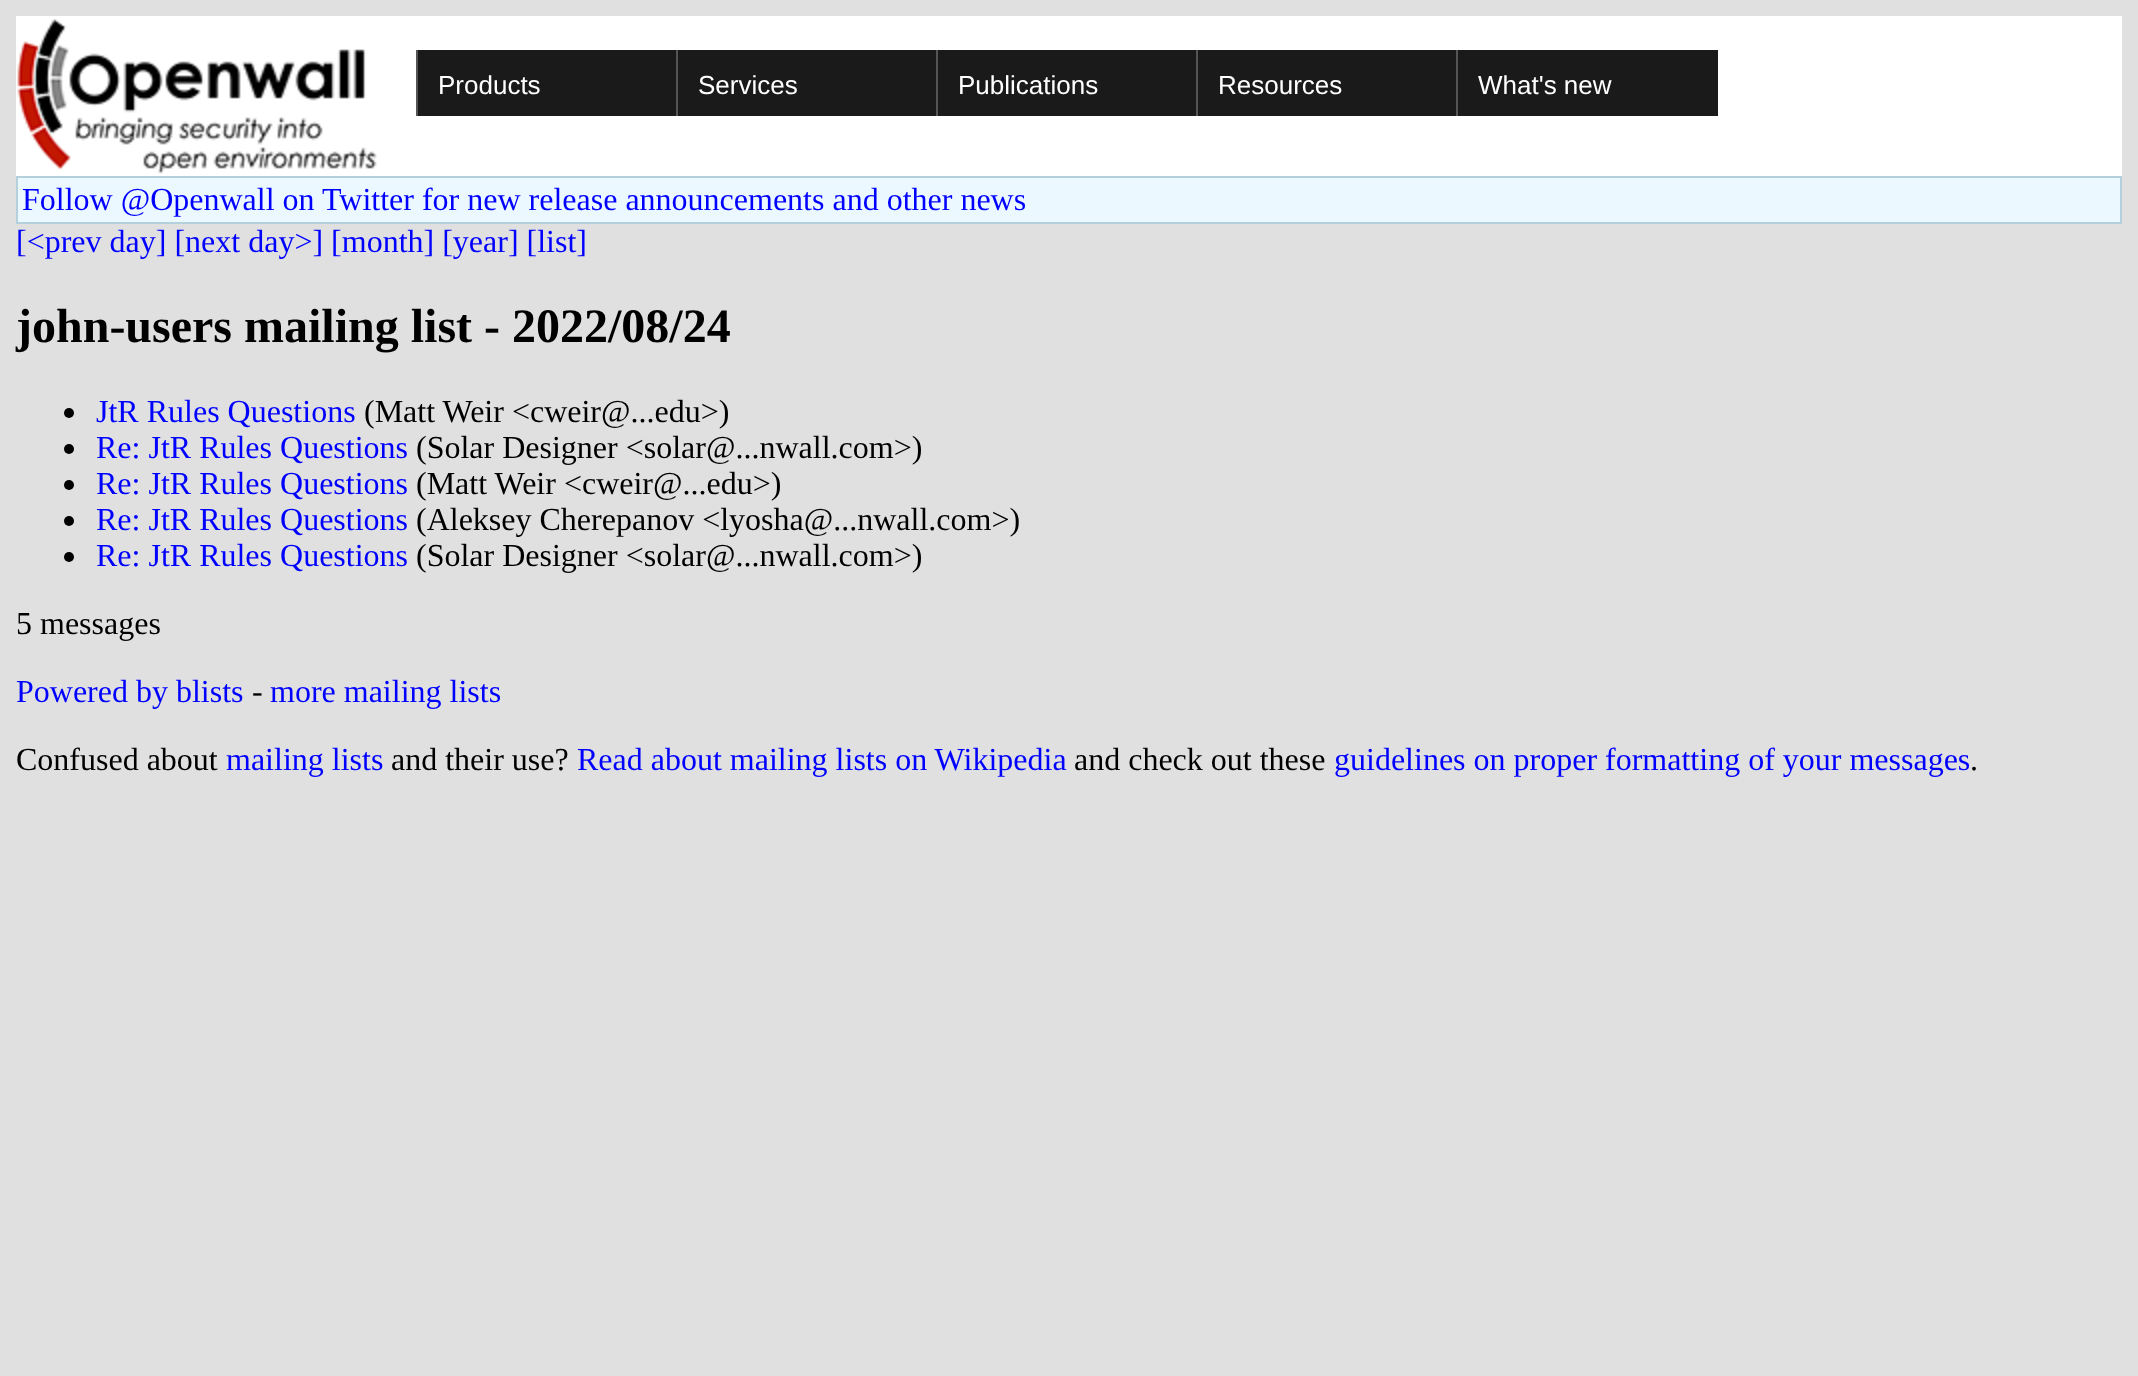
<svg xmlns="http://www.w3.org/2000/svg" width="2138" height="1376">
	<rect width="100%" height="100%" fill="#E0E0E0" />
	<rect x="16" y="16" width="2106" height="160" fill="#FFFFFF" />
	<image x="17" y="19" width="360" height="155" href="assets/img1.png" />
	<rect x="418" y="50" width="258" height="66" fill="#1A1A1A" />
	<rect x="416" y="50" width="2" height="66" fill="#555555" />
	<text x="438" y="94" font-family="Liberation Sans" font-size="26" fill="#FFFFFF">Products</text>
	<rect x="678" y="50" width="258" height="66" fill="#1A1A1A" />
	<rect x="676" y="50" width="2" height="66" fill="#555555" />
	<text x="698" y="94" font-family="Liberation Sans" font-size="26" fill="#FFFFFF">Services</text>
	<rect x="938" y="50" width="258" height="66" fill="#1A1A1A" />
	<rect x="936" y="50" width="2" height="66" fill="#555555" />
	<text x="958" y="94" font-family="Liberation Sans" font-size="26" fill="#FFFFFF">Publications</text>
	<rect x="1198" y="50" width="258" height="66" fill="#1A1A1A" />
	<rect x="1196" y="50" width="2" height="66" fill="#555555" />
	<text x="1218" y="94" font-family="Liberation Sans" font-size="26" fill="#FFFFFF">Resources</text>
	<rect x="1458" y="50" width="260" height="66" fill="#1A1A1A" />
	<rect x="1456" y="50" width="2" height="66" fill="#555555" />
	<text x="1478" y="94" font-family="Liberation Sans" font-size="26" fill="#FFFFFF">What's new</text>
	<rect x="16" y="176" width="2106" height="48" fill="#B4D0DC" />
	<rect x="18" y="178" width="2102" height="44" fill="#ECF8FF" />
	<g font-family="Liberation Serif" font-size="32" fill="#0000FF">
		<text x="22" y="210">Follow @Openwall on Twitter for new release announcements and other news</text>
		<text x="16" y="252">[&lt;prev day] [next day&gt;] [month] [year] [list]</text>
	</g>
	<text x="16" y="342" font-family="Liberation Serif" font-size="48" font-weight="700" fill="#000000">john-users mailing list - 2022/08/24</text>
	<circle cx="69" cy="413" r="5" fill="#000000" />
	<text x="96" y="422" font-family="Liberation Serif" font-size="32" fill="#0000FF">JtR Rules Questions</text>
	<text x="364" y="422" font-family="Liberation Serif" font-size="32" fill="#000000">(Matt Weir &lt;cweir@...edu&gt;)</text>
	<circle cx="69" cy="449" r="5" fill="#000000" />
	<text x="96" y="458" font-family="Liberation Serif" font-size="32" fill="#0000FF">Re: JtR Rules Questions</text>
	<text x="416" y="458" font-family="Liberation Serif" font-size="32" fill="#000000">(Solar Designer &lt;solar@...nwall.com&gt;)</text>
	<circle cx="69" cy="485" r="5" fill="#000000" />
	<text x="96" y="494" font-family="Liberation Serif" font-size="32" fill="#0000FF">Re: JtR Rules Questions</text>
	<text x="416" y="494" font-family="Liberation Serif" font-size="32" fill="#000000">(Matt Weir &lt;cweir@...edu&gt;)</text>
	<circle cx="69" cy="521" r="5" fill="#000000" />
	<text x="96" y="530" font-family="Liberation Serif" font-size="32" fill="#0000FF">Re: JtR Rules Questions</text>
	<text x="416" y="530" font-family="Liberation Serif" font-size="32" fill="#000000">(Aleksey Cherepanov &lt;lyosha@...nwall.com&gt;)</text>
	<circle cx="69" cy="557" r="5" fill="#000000" />
	<text x="96" y="566" font-family="Liberation Serif" font-size="32" fill="#0000FF">Re: JtR Rules Questions</text>
	<g font-family="Liberation Serif" font-size="32" fill="#000000">
		<text x="416" y="566">(Solar Designer &lt;solar@...nwall.com&gt;)</text>
		<text x="16" y="634">5 messages</text>
	</g>
	<text x="16" y="702" font-family="Liberation Serif" font-size="32" fill="#0000FF">Powered by blists</text>
	<text x="252" y="702" font-family="Liberation Serif" font-size="32" fill="#000000">-</text>
	<text x="270" y="702" font-family="Liberation Serif" font-size="32" fill="#0000FF">more mailing lists</text>
	<text x="16" y="770" font-family="Liberation Serif" font-size="32" fill="#000000">Confused about</text>
	<text x="226" y="770" font-family="Liberation Serif" font-size="32" fill="#0000FF">mailing lists</text>
	<text x="391" y="770" font-family="Liberation Serif" font-size="32" fill="#000000">and their use?</text>
	<text x="577" y="770" font-family="Liberation Serif" font-size="32" fill="#0000FF">Read about mailing lists on Wikipedia</text>
	<text x="1074" y="770" font-family="Liberation Serif" font-size="32" fill="#000000">and check out these</text>
	<text x="1334" y="770" font-family="Liberation Serif" font-size="32" fill="#0000FF">guidelines on proper formatting of your messages</text>
	<text x="1970" y="770" font-family="Liberation Serif" font-size="32" fill="#000000">.</text>
</svg>
